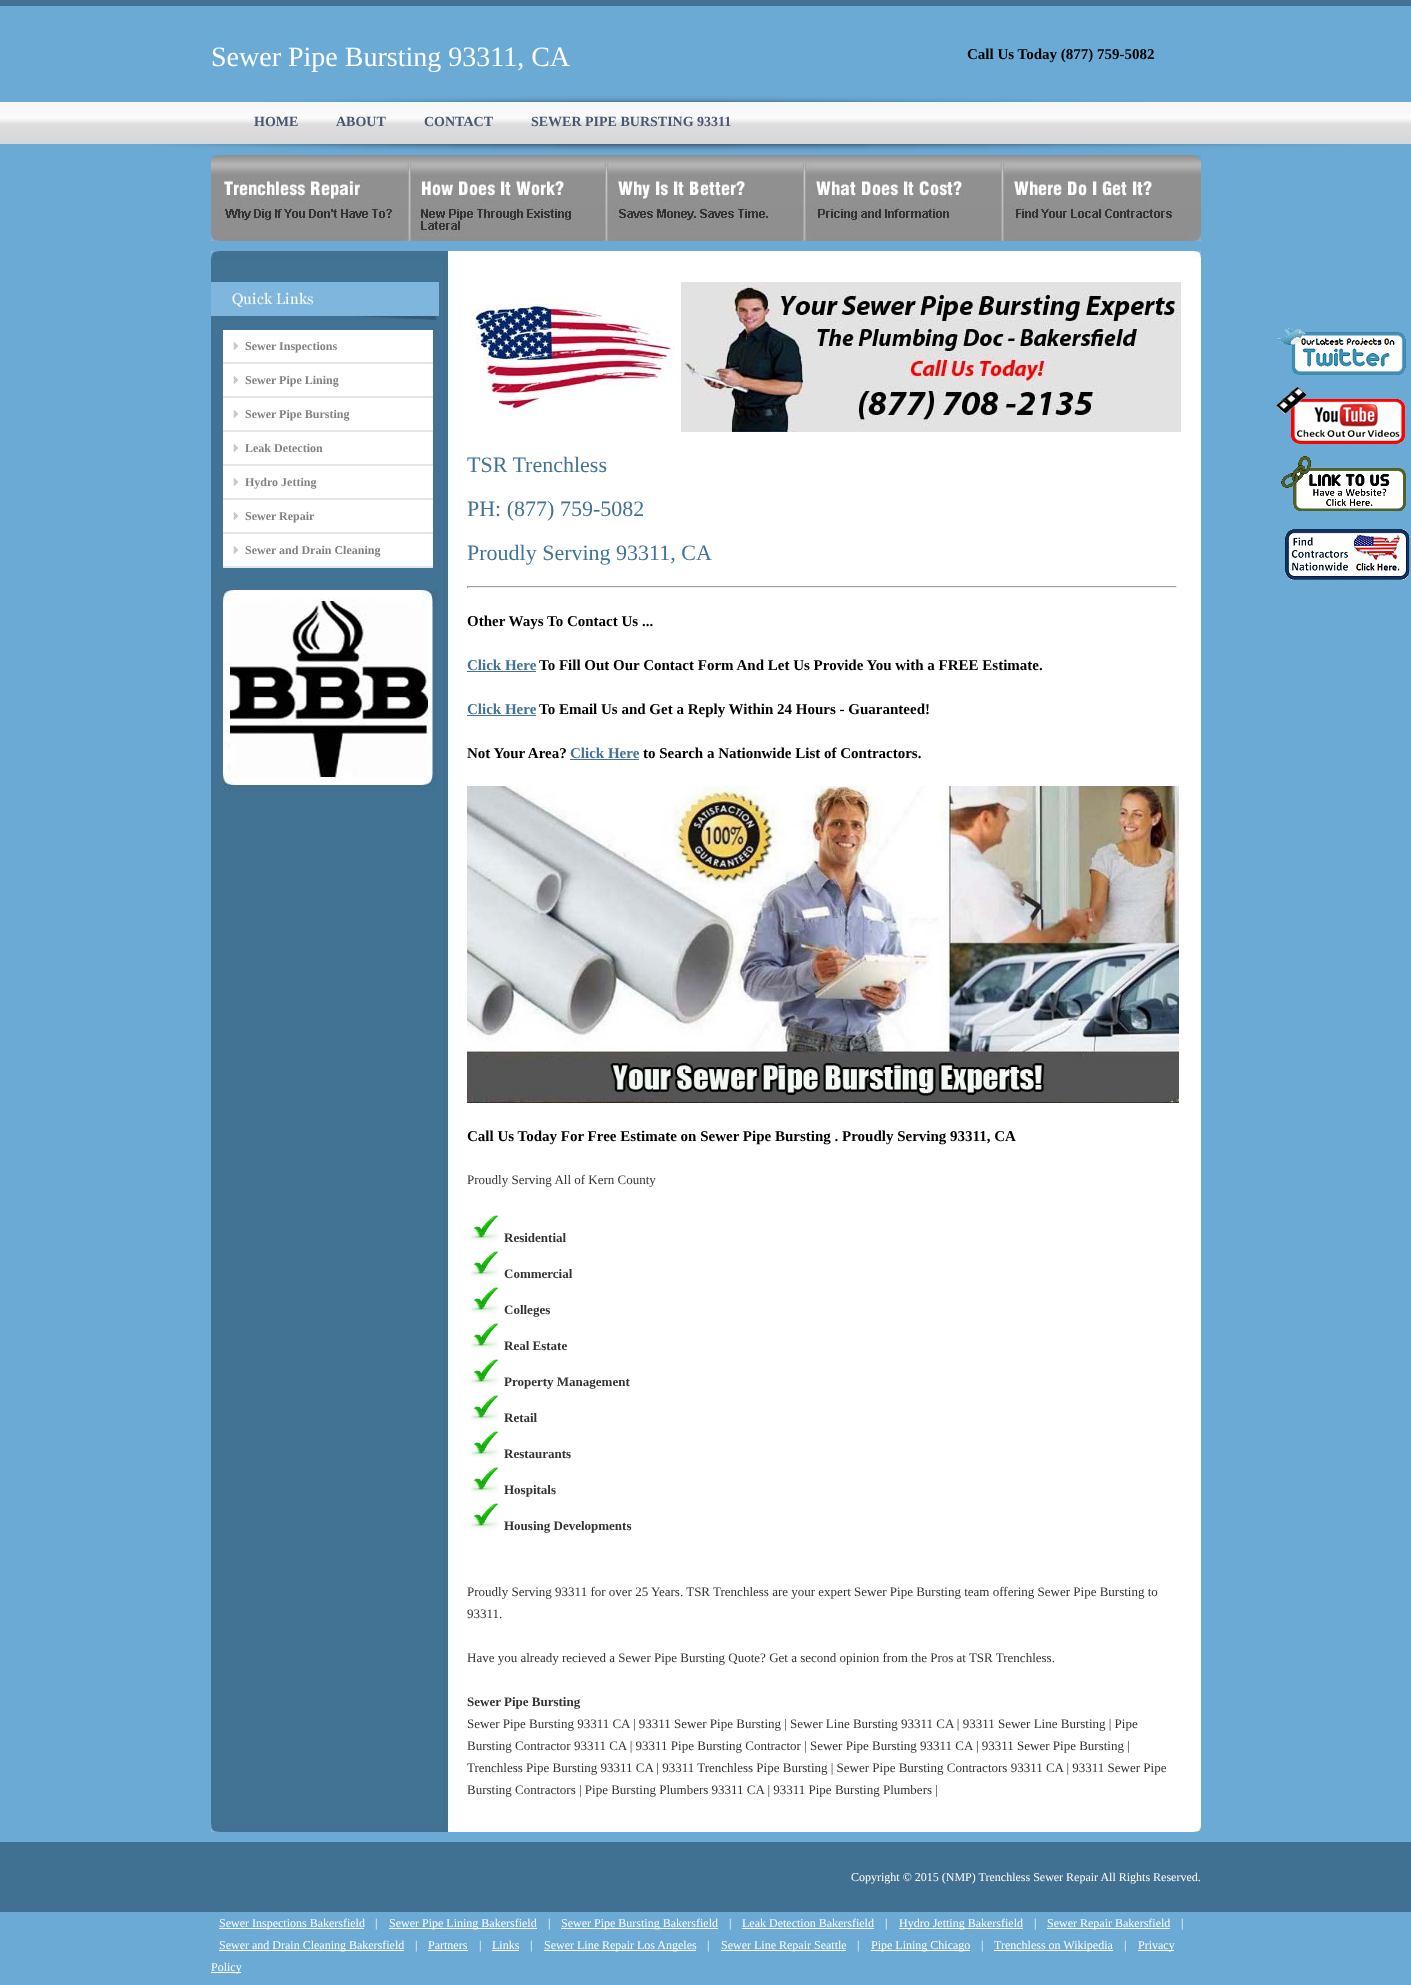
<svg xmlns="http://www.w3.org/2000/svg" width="1411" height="1985">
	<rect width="100%" height="100%" fill="#6BAAD5" />
	<image x="0" y="0" width="1411" height="152" href="assets/img1.png" />
	<text x="211" y="66" font-family="Liberation Serif" font-size="28" fill="#FFFFFF">Sewer Pipe Bursting 93311, CA</text>
	<text x="967" y="59" font-family="Liberation Serif" font-size="15" font-weight="700" fill="#000000">Call Us Today (877) 759-5082</text>
	<g font-family="Liberation Serif" font-size="14" font-weight="700" fill="#4C5670">
		<text x="254" y="126">HOME</text>
		<text x="336" y="126">ABOUT</text>
		<text x="424" y="126">CONTACT</text>
		<text x="531" y="126">SEWER PIPE BURSTING 93311</text>
	</g>
	<image x="211" y="155" width="990" height="8" href="assets/img2.png" />
	<image x="211" y="163" width="198" height="78" href="assets/img3.png" />
	<image x="409" y="163" width="198" height="78" href="assets/img4.png" />
	<image x="607" y="163" width="198" height="78" href="assets/img5.png" />
	<image x="805" y="163" width="198" height="78" href="assets/img6.png" />
	<image x="1003" y="163" width="198" height="78" href="assets/img7.png" />
	<image x="211" y="251" width="990" height="9" href="assets/img8.png" />
	<image x="211" y="260" width="990" height="1563" href="assets/img9.png" />
	<image x="211" y="282" width="228" height="38" href="assets/img10.png" />
	<rect x="223" y="330" width="210" height="32" fill="#FFFFFF" />
	<image x="233" y="342" width="5" height="8" href="assets/img11.png" />
	<rect x="223" y="362" width="210" height="2" fill="#E5E5E5" />
	<text x="245" y="350" font-family="Liberation Serif" font-size="12" font-weight="700" fill="#828282">Sewer Inspections</text>
	<rect x="223" y="364" width="210" height="32" fill="#FFFFFF" />
	<image x="233" y="376" width="5" height="8" href="assets/img11.png" />
	<rect x="223" y="396" width="210" height="2" fill="#E5E5E5" />
	<text x="245" y="384" font-family="Liberation Serif" font-size="12" font-weight="700" fill="#828282">Sewer Pipe Lining</text>
	<rect x="223" y="398" width="210" height="32" fill="#FFFFFF" />
	<image x="233" y="410" width="5" height="8" href="assets/img11.png" />
	<rect x="223" y="430" width="210" height="2" fill="#E5E5E5" />
	<text x="245" y="418" font-family="Liberation Serif" font-size="12" font-weight="700" fill="#828282">Sewer Pipe Bursting</text>
	<rect x="223" y="432" width="210" height="32" fill="#FFFFFF" />
	<image x="233" y="444" width="5" height="8" href="assets/img11.png" />
	<rect x="223" y="464" width="210" height="2" fill="#E5E5E5" />
	<text x="245" y="452" font-family="Liberation Serif" font-size="12" font-weight="700" fill="#828282">Leak Detection</text>
	<rect x="223" y="466" width="210" height="32" fill="#FFFFFF" />
	<image x="233" y="478" width="5" height="8" href="assets/img11.png" />
	<rect x="223" y="498" width="210" height="2" fill="#E5E5E5" />
	<text x="245" y="486" font-family="Liberation Serif" font-size="12" font-weight="700" fill="#828282">Hydro Jetting</text>
	<rect x="223" y="500" width="210" height="32" fill="#FFFFFF" />
	<image x="233" y="512" width="5" height="8" href="assets/img11.png" />
	<rect x="223" y="532" width="210" height="2" fill="#E5E5E5" />
	<text x="245" y="520" font-family="Liberation Serif" font-size="12" font-weight="700" fill="#828282">Sewer Repair</text>
	<rect x="223" y="534" width="210" height="32" fill="#FFFFFF" />
	<image x="233" y="546" width="5" height="8" href="assets/img11.png" />
	<rect x="223" y="566" width="210" height="2" fill="#E5E5E5" />
	<text x="245" y="554" font-family="Liberation Serif" font-size="12" font-weight="700" fill="#828282">Sewer and Drain Cleaning</text>
	<image x="223" y="590" width="214" height="208" href="assets/img12.png" />
	<image x="467" y="282" width="714" height="150" href="assets/img13.png" />
	<g font-family="Liberation Serif" font-size="22" fill="#427395">
		<text x="467" y="472">TSR Trenchless</text>
		<text x="467" y="516">PH: (877) 759-5082</text>
		<text x="467" y="560">Proudly Serving 93311, CA</text>
	</g>
	<rect x="467" y="586" width="710" height="1" fill="#9F9F9F" />
	<rect x="1176" y="586" width="1" height="2" fill="#EEEEEE" />
	<rect x="467" y="587" width="710" height="1" fill="#EEEEEE" />
	<rect x="467" y="586" width="1" height="2" fill="#9F9F9F" />
	<text x="467" y="626" font-family="Liberation Serif" font-size="15" font-weight="700" fill="#000000">Other Ways To Contact Us ...</text>
	<text x="467" y="670" font-family="Liberation Serif" font-size="15" font-weight="700" fill="#427395">Click Here</text>
	<rect x="467" y="671" width="69" height="1" fill="#427395" />
	<text x="539" y="670" font-family="Liberation Serif" font-size="15" font-weight="700" fill="#000000">To Fill Out Our Contact Form And Let Us Provide You with a FREE Estimate.</text>
	<text x="467" y="714" font-family="Liberation Serif" font-size="15" font-weight="700" fill="#427395">Click Here</text>
	<rect x="467" y="715" width="69" height="1" fill="#427395" />
	<g font-family="Liberation Serif" font-size="15" font-weight="700" fill="#000000">
		<text x="539" y="714">To Email Us and Get a Reply Within 24 Hours - Guaranteed!</text>
		<text x="467" y="758">Not Your Area?</text>
	</g>
	<text x="570" y="758" font-family="Liberation Serif" font-size="15" font-weight="700" fill="#427395">Click Here</text>
	<rect x="570" y="759" width="69" height="1" fill="#427395" />
	<text x="643" y="758" font-family="Liberation Serif" font-size="15" font-weight="700" fill="#000000">to Search a Nationwide List of Contractors.</text>
	<image x="467" y="786" width="712" height="317" href="assets/img14.png" />
	<text x="467" y="1141" font-family="Liberation Serif" font-size="15" font-weight="700" fill="#000000">Call Us Today For Free Estimate on Sewer Pipe Bursting . Proudly Serving 93311, CA</text>
	<text x="467" y="1184" font-family="Liberation Serif" font-size="13" fill="#333333">Proudly Serving All of Kern County</text>
	<image x="470" y="1215" width="29" height="26" href="assets/img15.png" />
	<text x="504" y="1242" font-family="Liberation Serif" font-size="13" font-weight="700" fill="#333333">Residential</text>
	<image x="470" y="1251" width="29" height="26" href="assets/img15.png" />
	<text x="504" y="1278" font-family="Liberation Serif" font-size="13" font-weight="700" fill="#333333">Commercial</text>
	<image x="470" y="1287" width="29" height="26" href="assets/img15.png" />
	<text x="504" y="1314" font-family="Liberation Serif" font-size="13" font-weight="700" fill="#333333">Colleges</text>
	<image x="470" y="1323" width="29" height="26" href="assets/img15.png" />
	<text x="504" y="1350" font-family="Liberation Serif" font-size="13" font-weight="700" fill="#333333">Real Estate</text>
	<image x="470" y="1359" width="29" height="26" href="assets/img15.png" />
	<text x="504" y="1386" font-family="Liberation Serif" font-size="13" font-weight="700" fill="#333333">Property Management</text>
	<image x="470" y="1395" width="29" height="26" href="assets/img15.png" />
	<text x="504" y="1422" font-family="Liberation Serif" font-size="13" font-weight="700" fill="#333333">Retail</text>
	<image x="470" y="1431" width="29" height="26" href="assets/img15.png" />
	<text x="504" y="1458" font-family="Liberation Serif" font-size="13" font-weight="700" fill="#333333">Restaurants</text>
	<image x="470" y="1467" width="29" height="26" href="assets/img15.png" />
	<text x="504" y="1494" font-family="Liberation Serif" font-size="13" font-weight="700" fill="#333333">Hospitals</text>
	<image x="470" y="1503" width="29" height="26" href="assets/img15.png" />
	<text x="504" y="1530" font-family="Liberation Serif" font-size="13" font-weight="700" fill="#333333">Housing Developments</text>
	<g font-family="Liberation Serif" font-size="13" fill="#333333">
		<text x="467" y="1596">Proudly Serving 93311 for over 25 Years. TSR Trenchless are your expert Sewer Pipe Bursting team offering Sewer Pipe Bursting to</text>
		<text x="467" y="1618">93311.</text>
		<text x="467" y="1662">Have you already recieved a Sewer Pipe Bursting Quote? Get a second opinion from the Pros at TSR Trenchless.</text>
	</g>
	<text x="467" y="1706" font-family="Liberation Serif" font-size="13" font-weight="700" fill="#333333">Sewer Pipe Bursting</text>
	<g font-family="Liberation Serif" font-size="13" fill="#333333">
		<text x="467" y="1728">Sewer Pipe Bursting 93311 CA | 93311 Sewer Pipe Bursting | Sewer Line Bursting 93311 CA | 93311 Sewer Line Bursting | Pipe</text>
		<text x="467" y="1750">Bursting Contractor 93311 CA | 93311 Pipe Bursting Contractor | Sewer Pipe Bursting 93311 CA | 93311 Sewer Pipe Bursting |</text>
		<text x="467" y="1772">Trenchless Pipe Bursting 93311 CA | 93311 Trenchless Pipe Bursting | Sewer Pipe Bursting Contractors 93311 CA | 93311 Sewer Pipe</text>
		<text x="467" y="1794">Bursting Contractors | Pipe Bursting Plumbers 93311 CA | 93311 Pipe Bursting Plumbers |</text>
	</g>
	<image x="211" y="1823" width="990" height="9" href="assets/img16.png" />
	<image x="1277" y="328" width="129" height="47" href="assets/img17.png" />
	<image x="1276" y="387" width="129" height="57" href="assets/img18.png" />
	<image x="1281" y="456" width="125" height="55" href="assets/img19.png" />
	<image x="1285" y="529" width="125" height="51" href="assets/img20.png" />
	<rect x="0" y="1842" width="1411" height="70" fill="#407193" />
	<text x="851" y="1881" font-family="Liberation Serif" font-size="12" fill="#FFFFFF">Copyright © 2015 (NMP) Trenchless Sewer Repair All Rights Reserved.</text>
	<rect x="219" y="1928" width="145" height="1" fill="#FFFFFF" />
	<g font-family="Liberation Serif" font-size="12" fill="#FFFFFF">
		<text x="219" y="1927">Sewer Inspections Bakersfield</text>
		<text x="375" y="1927">|</text>
	</g>
	<rect x="389" y="1928" width="148" height="1" fill="#FFFFFF" />
	<g font-family="Liberation Serif" font-size="12" fill="#FFFFFF">
		<text x="389" y="1927">Sewer Pipe Lining Bakersfield</text>
		<text x="548" y="1927">|</text>
	</g>
	<rect x="561" y="1928" width="157" height="1" fill="#FFFFFF" />
	<g font-family="Liberation Serif" font-size="12" fill="#FFFFFF">
		<text x="561" y="1927">Sewer Pipe Bursting Bakersfield</text>
		<text x="729" y="1927">|</text>
		<text x="742" y="1927">Leak Detection Bakersfield</text>
	</g>
	<rect x="742" y="1928" width="132" height="1" fill="#FFFFFF" />
	<text x="885" y="1927" font-family="Liberation Serif" font-size="12" fill="#FFFFFF">|</text>
	<rect x="899" y="1928" width="124" height="1" fill="#FFFFFF" />
	<g font-family="Liberation Serif" font-size="12" fill="#FFFFFF">
		<text x="899" y="1927">Hydro Jetting Bakersfield</text>
		<text x="1034" y="1927">|</text>
	</g>
	<rect x="1047" y="1928" width="123" height="1" fill="#FFFFFF" />
	<g font-family="Liberation Serif" font-size="12" fill="#FFFFFF">
		<text x="1047" y="1927">Sewer Repair Bakersfield</text>
		<text x="1181" y="1927">|</text>
	</g>
	<rect x="219" y="1950" width="185" height="1" fill="#FFFFFF" />
	<g font-family="Liberation Serif" font-size="12" fill="#FFFFFF">
		<text x="219" y="1949">Sewer and Drain Cleaning Bakersfield</text>
		<text x="415" y="1949">|</text>
		<text x="428" y="1949">Partners</text>
	</g>
	<rect x="428" y="1950" width="40" height="1" fill="#FFFFFF" />
	<g font-family="Liberation Serif" font-size="12" fill="#FFFFFF">
		<text x="479" y="1949">|</text>
		<text x="492" y="1949">Links</text>
	</g>
	<rect x="492" y="1950" width="27" height="1" fill="#FFFFFF" />
	<text x="530" y="1949" font-family="Liberation Serif" font-size="12" fill="#FFFFFF">|</text>
	<rect x="544" y="1950" width="152" height="1" fill="#FFFFFF" />
	<g font-family="Liberation Serif" font-size="12" fill="#FFFFFF">
		<text x="544" y="1949">Sewer Line Repair Los Angeles</text>
		<text x="707" y="1949">|</text>
	</g>
	<rect x="721" y="1950" width="125" height="1" fill="#FFFFFF" />
	<g font-family="Liberation Serif" font-size="12" fill="#FFFFFF">
		<text x="721" y="1949">Sewer Line Repair Seattle</text>
		<text x="857" y="1949">|</text>
	</g>
	<rect x="871" y="1950" width="99" height="1" fill="#FFFFFF" />
	<g font-family="Liberation Serif" font-size="12" fill="#FFFFFF">
		<text x="871" y="1949">Pipe Lining Chicago</text>
		<text x="981" y="1949">|</text>
	</g>
	<rect x="994" y="1950" width="119" height="1" fill="#FFFFFF" />
	<g font-family="Liberation Serif" font-size="12" fill="#FFFFFF">
		<text x="994" y="1949">Trenchless on Wikipedia</text>
		<text x="1124" y="1949">|</text>
	</g>
	<rect x="1138" y="1950" width="36" height="1" fill="#FFFFFF" />
	<text x="1138" y="1949" font-family="Liberation Serif" font-size="12" fill="#FFFFFF">Privacy</text>
	<rect x="211" y="1972" width="30" height="1" fill="#FFFFFF" />
	<text x="211" y="1971" font-family="Liberation Serif" font-size="12" fill="#FFFFFF">Policy</text>
</svg>
